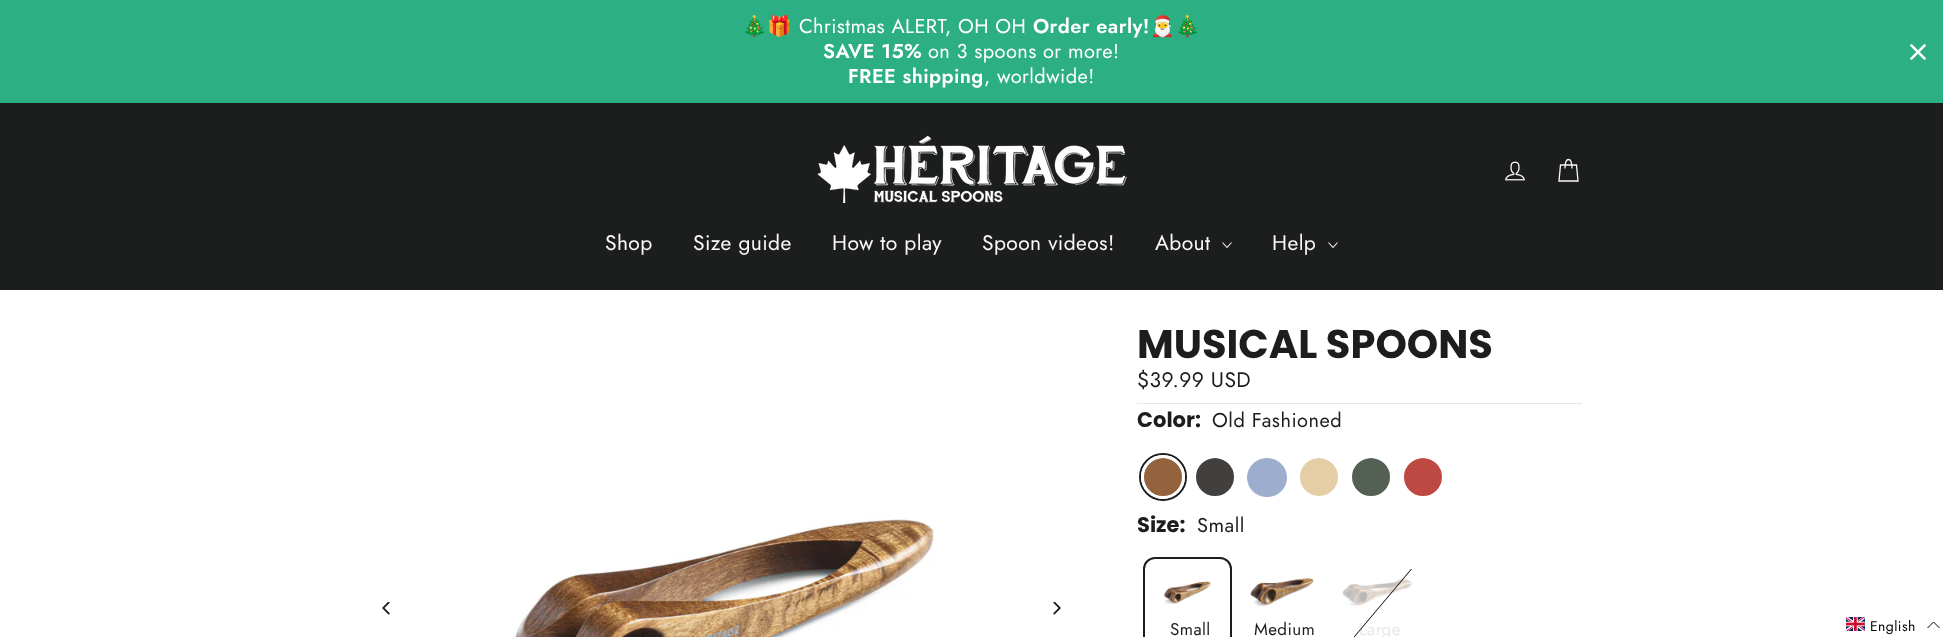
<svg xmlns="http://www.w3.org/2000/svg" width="1943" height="637">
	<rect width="100%" height="100%" fill="#FFFFFF" />
	<rect x="0" y="0" width="1943" height="103" fill="#2BAF83" />
	<text x="742" y="33" font-family="Noto Color Emoji" font-size="20" letter-spacing="0.4" fill="#FFFFFF">🎄🎁</text>
	<text x="799" y="33" font-family="Jost" font-size="20" letter-spacing="0.4" fill="#FFFFFF">Christmas ALERT, OH OH</text>
	<text x="1033" y="33" font-family="Jost" font-size="20" font-weight="600" letter-spacing="0.4" fill="#FFFFFF">Order early!</text>
	<text x="1150" y="33" font-family="Noto Color Emoji" font-size="20" letter-spacing="0.4" fill="#FFFFFF">🎅🎄</text>
	<text x="823" y="58" font-family="Jost" font-size="20" font-weight="600" letter-spacing="0.4" fill="#FFFFFF">SAVE 15%</text>
	<text x="928" y="58" font-family="Jost" font-size="20" letter-spacing="0.4" fill="#FFFFFF">on 3 spoons or more!</text>
	<text x="848" y="83" font-family="Jost" font-size="20" font-weight="600" letter-spacing="0.4" fill="#FFFFFF">FREE shipping</text>
	<text x="984" y="83" font-family="Jost" font-size="20" letter-spacing="0.4" fill="#FFFFFF">, worldwide!</text>
	<image x="1910" y="44" width="16" height="16" href="assets/img1.png" />
	<rect x="0" y="103" width="1943" height="187" fill="#1C1D1D" />
	<image x="817" y="135" width="310" height="68" href="assets/img2.png" />
	<image x="1505" y="161" width="20" height="20" href="assets/img3.png" />
	<path d="M1565 168.5C1565 156.5 1572 156.5 1572 168.5M1560.5 165H1576.5L1578 181H1559Z" fill="none" stroke="#F9F9F9" stroke-width="1.3" />
	<g font-family="Jost" font-size="21" letter-spacing="0.4" fill="#F9F9F9">
		<text x="605" y="250">Shop</text>
		<text x="693" y="250">Size guide</text>
		<text x="832" y="250">How to play</text>
		<text x="982" y="250">Spoon videos!</text>
		<text x="1155" y="250">About</text>
	</g>
	<path d="M1222.5 242.5L1227 247.5L1231.5 242.5" fill="none" stroke="#F9F9F9" stroke-width="1.1" />
	<text x="1272" y="250" font-family="Jost" font-size="21" letter-spacing="0.4" fill="#F9F9F9">Help</text>
	<path d="M1328.5 242.5L1333 247.5L1337.5 242.5" fill="none" stroke="#F9F9F9" stroke-width="1.1" />
	<image x="382" y="602" width="8" height="13" href="assets/img4.png" />
	<image x="515" y="518" width="423" height="119" href="assets/img5.png" />
	<image x="1053" y="602" width="8" height="13" href="assets/img6.png" />
	<text x="1137" y="358" font-family="Poppins" font-size="40" font-weight="700" fill="#1C1D1D">MUSICAL SPOONS</text>
	<rect x="1137" y="403" width="445" height="1" fill="#E8E8E1" />
	<text x="1137" y="387" font-family="Jost" font-size="21" letter-spacing="0.4" fill="#1C1D1D">$39.99 USD</text>
	<text x="1137" y="427" font-family="Poppins" font-size="21" font-weight="700" fill="#1C1D1D">Color:</text>
	<text x="1212" y="427" font-family="Jost" font-size="20" letter-spacing="0.5" fill="#1C1D1D">Old Fashioned</text>
	<circle cx="1163" cy="477" r="23" fill="none" stroke="#1C1D1D" stroke-width="2" />
	<image x="1144" y="458" width="38" height="38" href="assets/img7.png" />
	<circle cx="1163" cy="477" r="20.5" fill="none" stroke="#FFFFFF" stroke-width="3" />
	<image x="1196" y="458" width="38" height="38" href="assets/img8.png" />
	<circle cx="1215" cy="477" r="20.5" fill="none" stroke="#FFFFFF" stroke-width="3" />
	<image x="1247" y="458" width="40" height="39" href="assets/img9.png" />
	<image x="1300" y="458" width="38" height="38" href="assets/img10.png" />
	<circle cx="1319" cy="477" r="20.5" fill="none" stroke="#FFFFFF" stroke-width="3" />
	<image x="1352" y="458" width="38" height="38" href="assets/img11.png" />
	<circle cx="1371" cy="477" r="20.5" fill="none" stroke="#FFFFFF" stroke-width="3" />
	<image x="1404" y="458" width="38" height="38" href="assets/img12.png" />
	<circle cx="1423" cy="477" r="20.5" fill="none" stroke="#FFFFFF" stroke-width="3" />
	<text x="1137" y="532" font-family="Poppins" font-size="21" font-weight="700" fill="#1C1D1D">Size:</text>
	<text x="1197" y="532" font-family="Jost" font-size="20" letter-spacing="0.5" fill="#1C1D1D">Small</text>
	<rect x="1144" y="558" width="87" height="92" rx="11" fill="none" stroke="#1C1D1D" stroke-width="2" />
	<image x="1163" y="581" width="48" height="23" href="assets/img13.png" />
	<text x="1170" y="635" font-family="Jost" font-size="17" letter-spacing="0.4" fill="#1C1D1D">Small</text>
	<image x="1250" y="578" width="64" height="29" href="assets/img14.png" />
	<text x="1254" y="635" font-family="Jost" font-size="17" letter-spacing="0.4" fill="#1C1D1D">Medium</text>
	<image x="1342" y="578" width="70" height="28" href="assets/img15.png" />
	<text x="1359" y="635" font-family="Jost" font-size="17" letter-spacing="0.4" fill="#E8E8E1">Large</text>
	<path d="M1411 569H1412L1347 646H1346Z" fill="#000000" />
	<image x="1846" y="617" width="19" height="14" href="assets/img16.png" />
	<text x="1870" y="631" font-family="Jost" font-size="14" letter-spacing="0.4" fill="#000000">English</text>
	<path d="M1939.5 628L1933.5 622L1927.5 628" fill="none" stroke="#000000" />
</svg>
